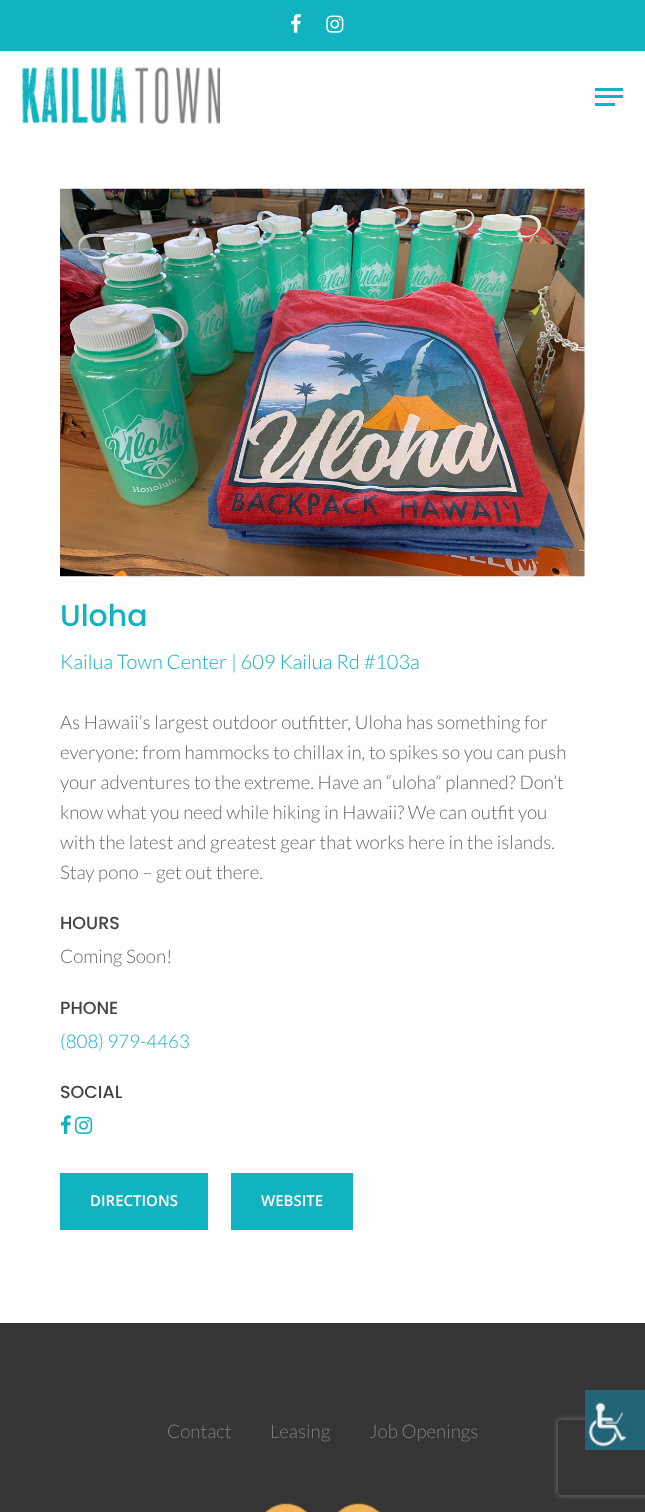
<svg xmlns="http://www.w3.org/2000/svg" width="645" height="1512">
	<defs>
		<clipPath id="clip1"><path d="M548 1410H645V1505H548ZM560.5 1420H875.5C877 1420 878 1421 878 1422.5V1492.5C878 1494 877 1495 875.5 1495H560.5C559 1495 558 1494 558 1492.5V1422.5C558 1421 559 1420 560.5 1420Z" clip-rule="evenodd" /></clipPath>
	</defs>
	<rect width="100%" height="100%" fill="#FFFFFF" />
	<rect x="0" y="0" width="645" height="51" fill="#12B3C0" />
	<image x="291" y="14" width="10" height="19" href="assets/img1.png" />
	<image x="326" y="15" width="18" height="18" href="assets/img2.png" />
	<image x="22" y="67" width="198" height="57" href="assets/img3.png" />
	<rect x="595" y="88" width="28" height="3" fill="#12B3C0" />
	<rect x="595" y="103" width="20" height="3" fill="#12B3C0" />
	<rect x="595" y="95" width="28" height="3" fill="#12B3C0" />
	<image x="60" y="188" width="525" height="389" href="assets/img4.png" />
	<text x="60" y="626" font-family="Poppins" font-size="30" font-weight="500" fill="#12B3C0">Uloha</text>
	<text x="60" y="669" font-family="Lato" font-size="20" font-weight="300" fill="#12B3C0">Kailua Town Center | 609 Kailua Rd #103a</text>
	<g font-family="Lato" font-size="18.75" font-weight="300" fill="#676767">
		<text x="60" y="729">As Hawaii’s largest outdoor outfitter, Uloha has something for</text>
		<text x="60" y="759">everyone: from hammocks to chillax in, to spikes so you can push</text>
		<text x="60" y="789">your adventures to the extreme. Have an “uloha” planned? Don’t</text>
		<text x="60" y="819">know what you need while hiking in Hawaii? We can outfit you</text>
		<text x="60" y="849">with the latest and greatest gear that works here in the islands.</text>
		<text x="60" y="879">Stay pono – get out there.</text>
	</g>
	<text x="60" y="929" font-family="Poppins" font-size="17.5" font-weight="500" fill="#444444">HOURS</text>
	<text x="60" y="963" font-family="Lato" font-size="18.75" font-weight="300" fill="#676767">Coming Soon!</text>
	<text x="60" y="1014" font-family="Poppins" font-size="17.5" font-weight="500" fill="#444444">PHONE</text>
	<text x="60" y="1048" font-family="Lato" font-size="18.75" font-weight="300" fill="#12B3C0">(808) 979-4463</text>
	<text x="60" y="1098" font-family="Poppins" font-size="17.5" font-weight="500" fill="#444444">SOCIAL</text>
	<image x="61" y="1115" width="10" height="19" href="assets/img5.png" />
	<image x="75" y="1116" width="18" height="18" href="assets/img6.png" />
	<rect x="60" y="1173" width="148" height="57" fill="#12B3C0" />
	<text x="90" y="1206" font-family="Open Sans" font-size="15" font-weight="600" fill="#FFFFFF">DIRECTIONS</text>
	<rect x="231" y="1173" width="122" height="57" fill="#12B3C0" />
	<text x="261" y="1206" font-family="Open Sans" font-size="15" font-weight="600" fill="#FFFFFF">WEBSITE</text>
	<rect x="0" y="1323" width="645" height="189" fill="#353535" />
	<g font-family="Lato" font-size="18.75" font-weight="300" fill="#808080">
		<text x="167" y="1438">Contact</text>
		<text x="270" y="1438">Leasing</text>
		<text x="369" y="1438">Job Openings</text>
	</g>
	<image x="265" y="1503" width="43" height="9" href="assets/img7.png" />
	<image x="337" y="1503" width="44" height="9" href="assets/img8.png" />
	<g clip-path="url(#clip1)">
		<rect x="558" y="1420" width="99" height="75" rx="2.5" fill="#808080" filter="blur(3px)" />
	</g>
	<image x="585" y="1390" width="60" height="60" href="assets/img9.png" />
</svg>
